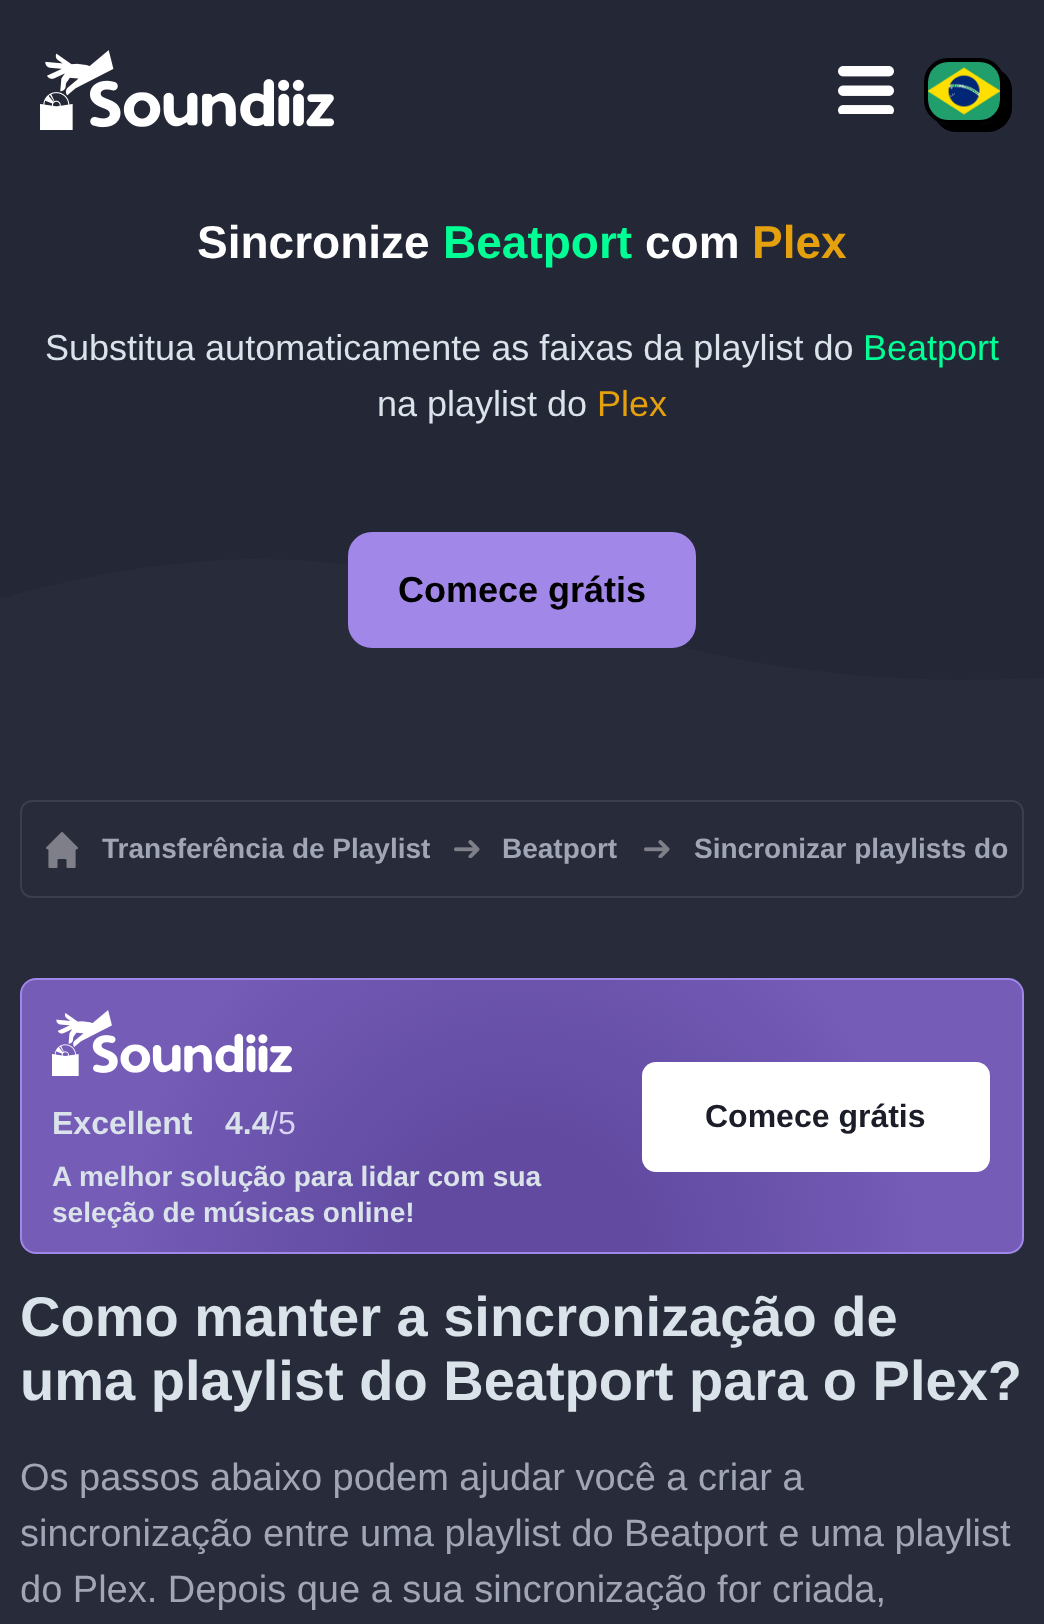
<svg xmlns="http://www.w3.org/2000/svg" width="1044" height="1624">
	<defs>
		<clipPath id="clip1"><rect x="0" y="522" width="1044" height="238" /></clipPath>
		<radialGradient id="g1" gradientUnits="userSpaceOnUse" cx="522" cy="1254" r="573"><stop offset="0.2" stop-color="#614AA0" /><stop offset="0.7" stop-color="#745CB7" /></radialGradient>
	</defs>
	<rect width="100%" height="100%" fill="#282B39" />
	<rect x="0" y="0" width="1044" height="680" fill="#242735" />
	<image x="40" y="50" width="294" height="80" href="assets/img1.png" />
	<image x="838" y="66" width="56" height="48" href="assets/img2.png" />
	<path d="M936 120C940 127 947 132 956 132H988C1001 132 1012 121 1012 108V90C1012 81 1007 74 1000 70C1003 73 1004 77 1004 82V100C1004 113 993 124 980 124H948C943 124 939 123 936 120Z" fill="#000000" />
	<image x="928" y="62" width="72" height="58" href="assets/img3.png" />
	<rect x="926" y="60" width="76" height="62" rx="22" fill="none" stroke="#000000" stroke-width="4" />
	<text x="197" y="258" font-family="Liberation Sans" font-size="46" font-weight="700" fill="#FFFFFF">Sincronize</text>
	<text x="443" y="258" font-family="Liberation Sans" font-size="46" font-weight="700" fill="#01FF95">Beatport</text>
	<text x="645" y="258" font-family="Liberation Sans" font-size="46" font-weight="700" fill="#FFFFFF">com</text>
	<text x="752" y="258" font-family="Liberation Sans" font-size="46" font-weight="700" fill="#E5A00D">Plex</text>
	<text x="45" y="360" font-family="Liberation Sans" font-size="36" fill="#DAE3E9">Substitua automaticamente as faixas da playlist do</text>
	<text x="863" y="360" font-family="Liberation Sans" font-size="36" fill="#01FF95">Beatport</text>
	<text x="377" y="416" font-family="Liberation Sans" font-size="36" fill="#DAE3E9">na playlist do</text>
	<text x="597" y="416" font-family="Liberation Sans" font-size="36" fill="#E5A00D">Plex</text>
	<g clip-path="url(#clip1)">
		<path d="M-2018 661C-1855 572-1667 513-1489 569C-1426 589-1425 605-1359 622C-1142 680-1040 545-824 553C-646 560-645 655-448 687C-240 722-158 629 75 580C497 490 571 721 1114 673C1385 649 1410 588 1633 606C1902 628 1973 726 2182 691C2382 658 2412 552 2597 527C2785 501 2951 584 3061 657V761L-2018 762Z" fill="#282B39" />
	</g>
	<rect x="349" y="533" width="346" height="114" rx="23" fill="#A187E8" stroke="#A187E8" stroke-width="2" />
	<text x="398" y="602" font-family="Liberation Sans" font-size="36" font-weight="700" fill="#000000">Comece grátis</text>
	<rect x="21" y="801" width="1002" height="96" rx="11" fill="none" stroke="#3A3F50" stroke-width="2" />
	<image x="46" y="832" width="32" height="36" href="assets/img4.png" />
	<text x="102" y="858" font-family="Liberation Sans" font-size="28" font-weight="700" fill="#A1A6B6">Transferência de Playlist</text>
	<image x="454" y="840" width="26" height="18" href="assets/img5.png" />
	<text x="502" y="858" font-family="Liberation Sans" font-size="28" font-weight="700" fill="#A1A6B6">Beatport</text>
	<image x="644" y="840" width="26" height="18" href="assets/img5.png" />
	<text x="694" y="858" font-family="Liberation Sans" font-size="28" font-weight="700" fill="#A1A6B6">Sincronizar playlists do</text>
	<rect x="21" y="979" width="1002" height="274" rx="15" fill="url(#g1)" stroke="#A187E8" stroke-width="2" />
	<image x="52" y="1010" width="240" height="66" href="assets/img6.png" />
	<g font-family="Liberation Sans" font-size="32" font-weight="700" fill="#DAE3E9">
		<text x="52" y="1134">Excellent</text>
		<text x="225" y="1134">4.4</text>
	</g>
	<text x="269" y="1134" font-family="Liberation Sans" font-size="32" fill="#DAD2F5">/5</text>
	<g font-family="Liberation Sans" font-size="28" font-weight="700" fill="#DAE3E9">
		<text x="52" y="1186">A melhor solução para lidar com sua</text>
		<text x="52" y="1222">seleção de músicas online!</text>
	</g>
	<rect x="642" y="1062" width="348" height="110" rx="14" fill="#FFFFFF" />
	<text x="705" y="1127" font-family="Liberation Sans" font-size="32" font-weight="700" fill="#1B1E28">Comece grátis</text>
	<g font-family="Liberation Sans" font-size="56" font-weight="700" fill="#DAE3E9">
		<text x="20" y="1336">Como manter a sincronização de</text>
		<text x="20" y="1400">uma playlist do Beatport para o Plex?</text>
	</g>
	<g font-family="Liberation Sans" font-size="38" fill="#A1A6B6">
		<text x="20" y="1490">Os passos abaixo podem ajudar você a criar a</text>
		<text x="20" y="1546">sincronização entre uma playlist do Beatport e uma playlist</text>
		<text x="20" y="1602">do Plex. Depois que a sua sincronização for criada,</text>
	</g>
</svg>
